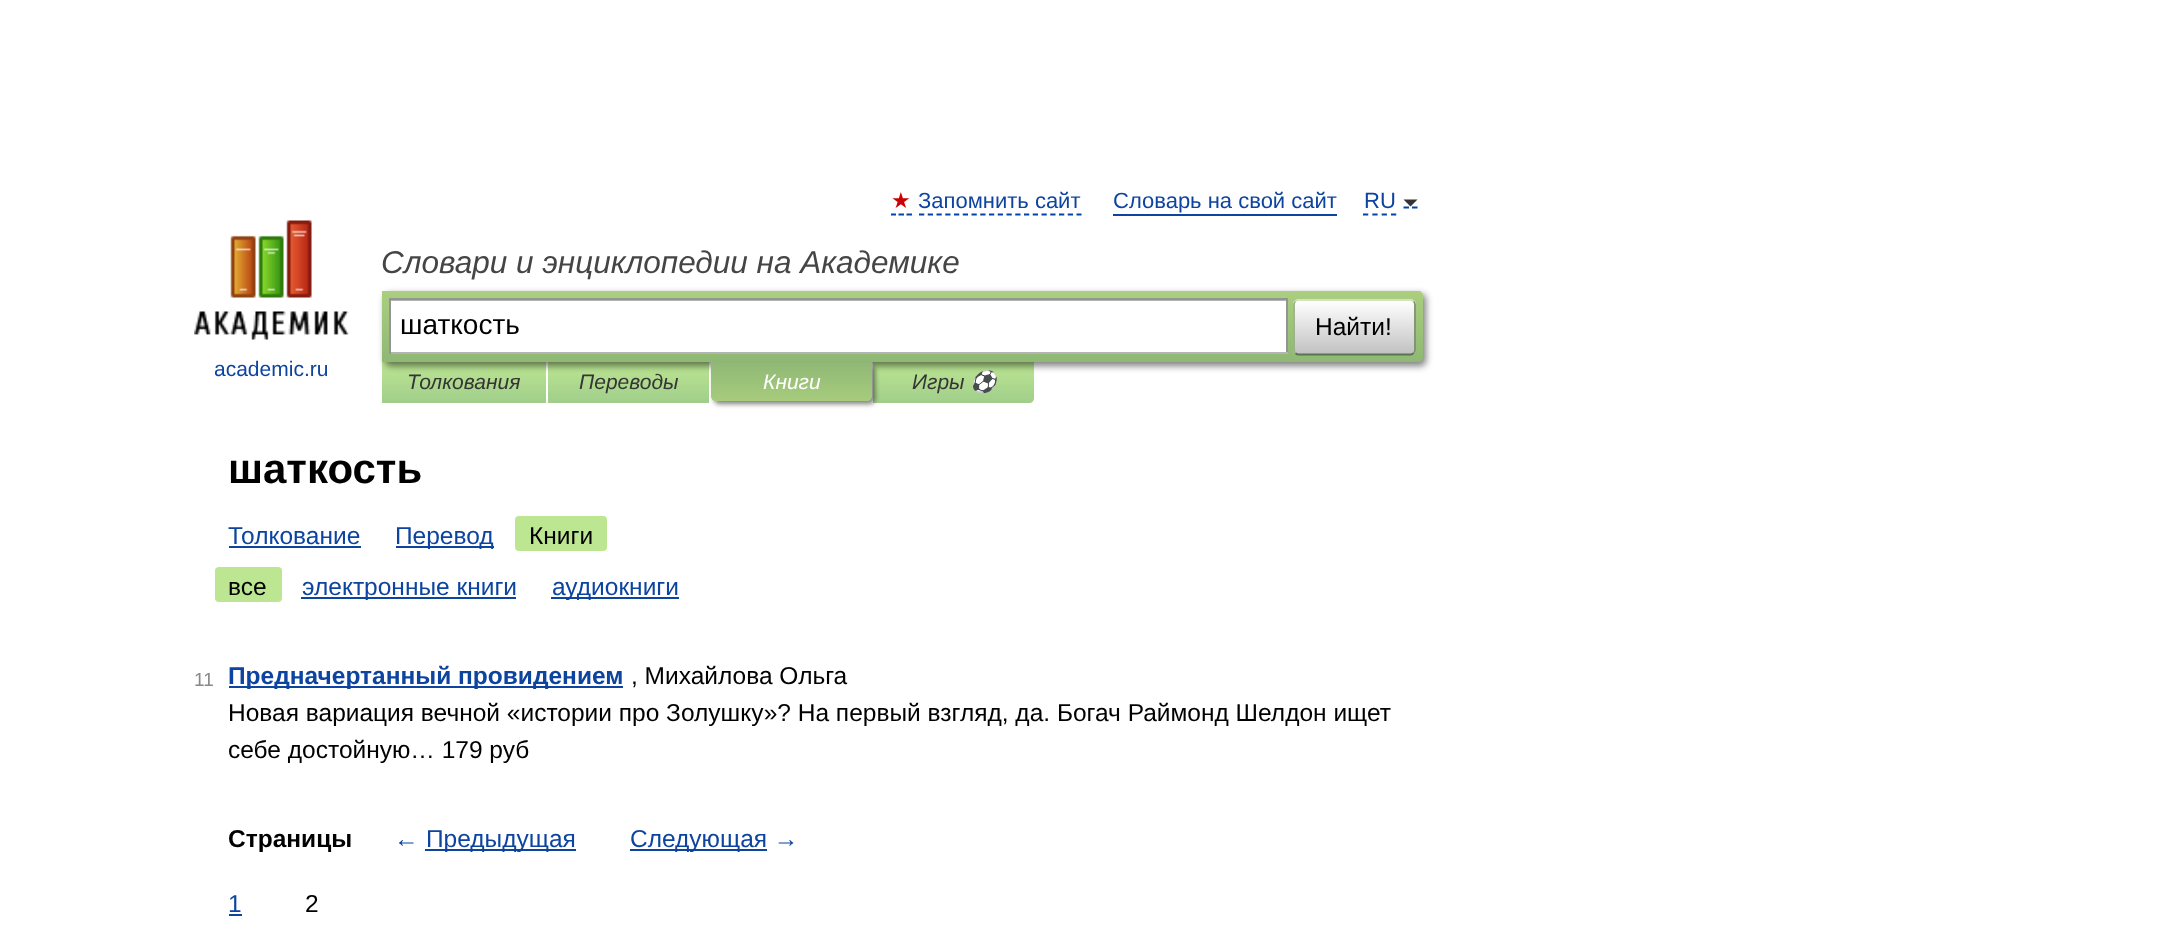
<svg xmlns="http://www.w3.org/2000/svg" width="2160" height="928">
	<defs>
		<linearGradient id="g1" gradientUnits="userSpaceOnUse" x1="464" y1="362" x2="464" y2="403"><stop offset="0" stop-color="#BDE693" /><stop offset="1" stop-color="#A0CE8A" /></linearGradient>
		<linearGradient id="g2" gradientUnits="userSpaceOnUse" x1="628" y1="362" x2="628" y2="403"><stop offset="0" stop-color="#BDE693" /><stop offset="1" stop-color="#A0CE8A" /></linearGradient>
		<linearGradient id="g3" gradientUnits="userSpaceOnUse" x1="954" y1="362" x2="954" y2="403"><stop offset="0" stop-color="#BDE693" /><stop offset="1" stop-color="#A0CE8A" /></linearGradient>
		<linearGradient id="g4" gradientUnits="userSpaceOnUse" x1="902" y1="290" x2="902" y2="362"><stop offset="0" stop-color="#ABCF7E" /><stop offset="1" stop-color="#8EB874" /></linearGradient>
		<clipPath id="clip1"><rect x="1293" y="299" width="123" height="56" rx="5" /></clipPath>
		<linearGradient id="g5" gradientUnits="userSpaceOnUse" x1="1355" y1="249" x2="1355" y2="301"><stop offset="0" stop-color="#FFFFFF" /><stop offset="1" stop-color="#C1C1C1" /></linearGradient>
		<linearGradient id="g6" gradientUnits="userSpaceOnUse" x1="1355" y1="301" x2="1355" y2="354"><stop offset="0" stop-color="#FFFFFF" /><stop offset="1" stop-color="#C1C1C1" /></linearGradient>
		<linearGradient id="g7" gradientUnits="userSpaceOnUse" x1="791" y1="362" x2="791" y2="401"><stop offset="0" stop-color="#8FB875" /><stop offset="1" stop-color="#A7CC7D" /></linearGradient>
	</defs>
	<rect width="100%" height="100%" fill="#FFFFFF" />
	<text x="891" y="208" font-family="DejaVu Sans" font-size="22" fill="#CC0000">★</text>
	<path d="M891 214.5H896M898.5 214.5H904M906.5 214.5H912" fill="none" stroke="#0044AA" stroke-width="1.8" />
	<text x="918" y="208" font-family="Liberation Sans" font-size="22" fill="#0D44A0">Запомнить сайт</text>
	<path d="M919 214.5H1081.5" fill="none" stroke="#0044AA" stroke-width="1.8" stroke-dasharray="5.25 3.5" />
	<text x="1113" y="208" font-family="Liberation Sans" font-size="22" fill="#0D44A0">Словарь на свой сайт</text>
	<rect x="1113" y="214" width="224" height="2" fill="#0D44A0" />
	<path d="M1363 214.5H1396.5" fill="none" stroke="#0044AA" stroke-width="1.8" stroke-dasharray="5.25 4.08" />
	<path d="M1403.5 207.5H1409M1412 207.5H1417.5" fill="none" stroke="#0044AA" stroke-width="1.8" />
	<text x="1364" y="208" font-family="Liberation Sans" font-size="22" fill="#0D44A0">RU</text>
	<path d="M1403.5 199.5H1417.5L1410.5 206.5Z" fill="#333333" />
	<text x="381" y="273" font-family="Liberation Sans" font-size="31.5" font-style="italic" fill="#454545">Словари и энциклопедии на Академике</text>
	<rect x="382" y="362" width="164" height="41" fill="url(#g1)" />
	<rect x="548" y="362" width="161" height="41" fill="url(#g2)" />
	<path d="M873 362H1034V398C1034 401 1032 403 1029 403H873Z" fill="url(#g3)" />
	<rect x="385" y="294" width="1041" height="72" rx="5" fill="#000000" fill-opacity="0.5" filter="blur(3.5px)" />
	<path d="M382 291H1418C1421 291 1423 293 1423 296V357C1423 360 1421 362 1418 362H382Z" fill="url(#g4)" />
	<rect x="391" y="301" width="895" height="51" fill="#FFFFFF" />
	<rect x="390" y="300" width="896" height="1" fill="#B3B3B3" />
	<rect x="389" y="298" width="899" height="2" fill="#949494" />
	<rect x="1286" y="298" width="2" height="56" fill="#949494" />
	<rect x="389" y="352" width="899" height="2" fill="#B4B4B4" />
	<rect x="389" y="298" width="2" height="56" fill="#949494" />
	<text x="400" y="334" font-family="Liberation Sans" font-size="28" fill="#000000">шаткость</text>
	<g clip-path="url(#clip1)">
		<rect x="1293" y="299" width="123" height="2" fill="url(#g5)" />
		<rect x="1293" y="301" width="123" height="53" fill="url(#g6)" />
	</g>
	<path d="M1295.5 301.5C1296 300.5 1297.5 300 1298.5 300H1410.5C1411.5 300 1413 300.5 1413.5 301.5" fill="none" stroke="#D1E4BC" stroke-width="1.8" />
	<path d="M1413.5 301.5C1414.5 302 1415 303.5 1415 304.5V350C1415 351 1414.5 352.5 1413.5 353" fill="none" stroke="#7A8E69" stroke-width="1.8" />
	<path d="M1413.5 353C1413 354 1411.5 354.5 1410.5 354.5H1298.5C1297.5 354.5 1296 354 1295.5 353" fill="none" stroke="#5D7250" stroke-width="1.8" />
	<path d="M1295.5 353C1294.5 352.5 1294 351 1294 350V304.5C1294 303.5 1294.5 302 1295.5 301.5" fill="none" stroke="#9AAE89" stroke-width="1.8" />
	<text x="1315" y="335" font-family="Liberation Sans" font-size="24.5" fill="#000000">Найти!</text>
	<image x="194" y="220" width="155" height="120" href="assets/img1.png" />
	<text x="214" y="376" font-family="Liberation Sans" font-size="21" fill="#0D44A0">academic.ru</text>
	<g font-family="Liberation Sans" font-size="21" font-style="italic" fill="#353535">
		<text x="407" y="389">Толкования</text>
		<text x="579" y="389">Переводы</text>
	</g>
	<rect x="714" y="366" width="161" height="38" rx="5" fill="#000000" fill-opacity="0.5" filter="blur(2.5px)" />
	<path d="M711 362H872V396C872 399 870 401 867 401H716C713 401 711 399 711 396Z" fill="url(#g7)" />
	<text x="763" y="389" font-family="Liberation Sans" font-size="21" font-style="italic" fill="#FFFFFF">Книги</text>
	<text x="912" y="389" font-family="Liberation Sans" font-size="21" font-style="italic" fill="#353535">Игры</text>
	<text x="970" y="389" font-family="Noto Color Emoji" font-size="21" font-style="italic" fill="#353535">⚽</text>
	<text x="228" y="483" font-family="Liberation Sans" font-size="42" font-weight="700" fill="#000000">шаткость</text>
	<text x="228" y="544" font-family="Liberation Sans" font-size="24.5" fill="#0D44A0">Толкование</text>
	<rect x="229" y="546" width="132" height="2" fill="#0D44A0" />
	<rect x="396" y="546" width="98" height="2" fill="#0D44A0" />
	<text x="395" y="544" font-family="Liberation Sans" font-size="24.5" fill="#0D44A0">Перевод</text>
	<rect x="515" y="516" width="92" height="35" rx="4" fill="#BDE693" />
	<text x="529" y="544" font-family="Liberation Sans" font-size="24.5" fill="#000000">Книги</text>
	<rect x="215" y="567" width="67" height="35" rx="4" fill="#BDE693" />
	<text x="228" y="595" font-family="Liberation Sans" font-size="24.5" fill="#000000">все</text>
	<rect x="301" y="597" width="215" height="2" fill="#0D44A0" />
	<text x="302" y="595" font-family="Liberation Sans" font-size="24.5" fill="#0D44A0">электронные книги</text>
	<rect x="551" y="597" width="128" height="2" fill="#0D44A0" />
	<text x="552" y="595" font-family="Liberation Sans" font-size="24.5" fill="#0D44A0">аудиокниги</text>
	<text x="194" y="686" font-family="Liberation Sans" font-size="19" fill="#898989">11</text>
	<rect x="229" y="686" width="394" height="2" fill="#0D44A0" />
	<text x="228" y="684" font-family="Liberation Sans" font-size="24.5" font-weight="700" fill="#0D44A0">Предначертанный провидением</text>
	<g font-family="Liberation Sans" font-size="24.5" fill="#000000">
		<text x="631" y="684">, Михайлова Ольга</text>
		<text x="228" y="721">Новая вариация вечной «истории про Золушку»? На первый взгляд, да. Богач Раймонд Шелдон ищет</text>
		<text x="228" y="758">себе достойную… 179 руб</text>
	</g>
	<text x="228" y="847" font-family="Liberation Sans" font-size="24.5" font-weight="700" fill="#000000">Страницы</text>
	<text x="394" y="847" font-family="Liberation Sans" font-size="24.5" fill="#0D44A0">←</text>
	<rect x="425" y="849" width="151" height="2" fill="#0D44A0" />
	<text x="426" y="847" font-family="Liberation Sans" font-size="24.5" fill="#0D44A0">Предыдущая</text>
	<rect x="630" y="849" width="137" height="2" fill="#0D44A0" />
	<g font-family="Liberation Sans" font-size="24.5" fill="#0D44A0">
		<text x="630" y="847">Следующая →</text>
		<text x="228" y="912">1</text>
	</g>
	<rect x="229" y="914" width="13" height="2" fill="#0D44A0" />
	<text x="305" y="912" font-family="Liberation Sans" font-size="24.5" fill="#000000">2</text>
</svg>
